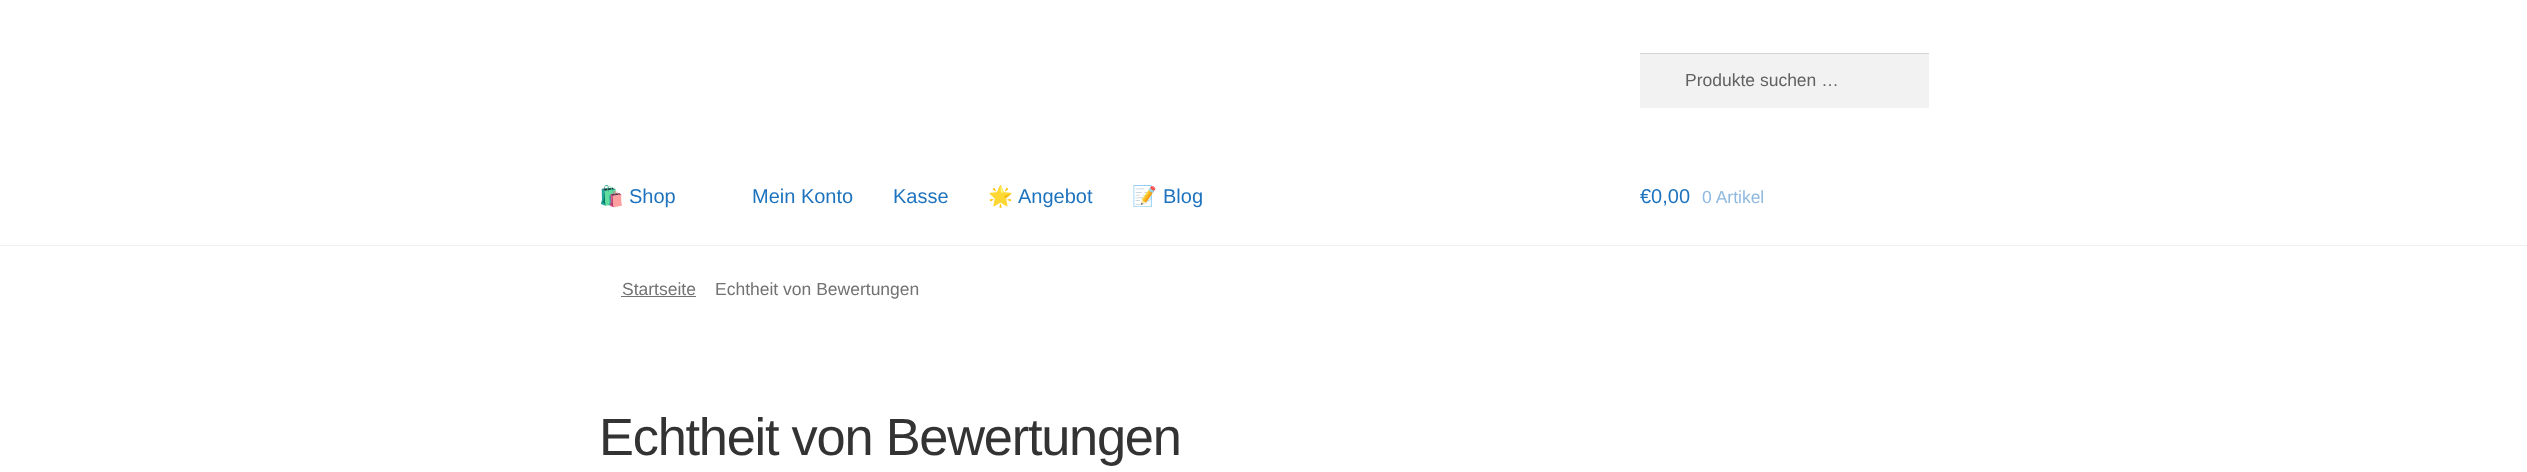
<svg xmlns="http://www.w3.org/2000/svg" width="2527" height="472">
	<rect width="100%" height="100%" fill="#FFFFFF" />
	<rect x="0" y="245" width="2527" height="1" fill="#F0F0F0" />
	<rect x="1640" y="54" width="289" height="54" fill="#F2F2F2" />
	<rect x="1640" y="53" width="289" height="1" fill="#D4D4D4" />
	<text x="1685" y="86" font-family="Liberation Sans" font-size="17.5" fill="#616161">Produkte suchen …</text>
	<text x="599" y="203" font-family="Noto Color Emoji" font-size="20" fill="#1E73BE">🛍️</text>
	<g font-family="Liberation Sans" font-size="20" fill="#1E73BE">
		<text x="629" y="203">Shop</text>
		<text x="752" y="203">Mein Konto</text>
		<text x="893" y="203">Kasse</text>
	</g>
	<text x="988" y="203" font-family="Noto Color Emoji" font-size="20" fill="#1E73BE">🌟</text>
	<text x="1018" y="203" font-family="Liberation Sans" font-size="20" fill="#1E73BE">Angebot</text>
	<text x="1132" y="203" font-family="Noto Color Emoji" font-size="20" fill="#1E73BE">📝</text>
	<g font-family="Liberation Sans" font-size="20" fill="#1E73BE">
		<text x="1163" y="203">Blog</text>
		<text x="1640" y="203">€0,00</text>
	</g>
	<text x="1702" y="203" font-family="Liberation Sans" font-size="17.5" fill="#8FB9DF">0 Artikel</text>
	<text x="622" y="295" font-family="Liberation Sans" font-size="17.5" fill="#727272">Startseite</text>
	<rect x="621" y="296" width="75" height="1" fill="#727272" />
	<text x="715" y="295" font-family="Liberation Sans" font-size="17.5" fill="#727272">Echtheit von Bewertungen</text>
	<text x="599" y="455" font-family="Liberation Sans" font-size="52.4" letter-spacing="-1.25" fill="#333333">Echtheit von Bewertungen</text>
</svg>
